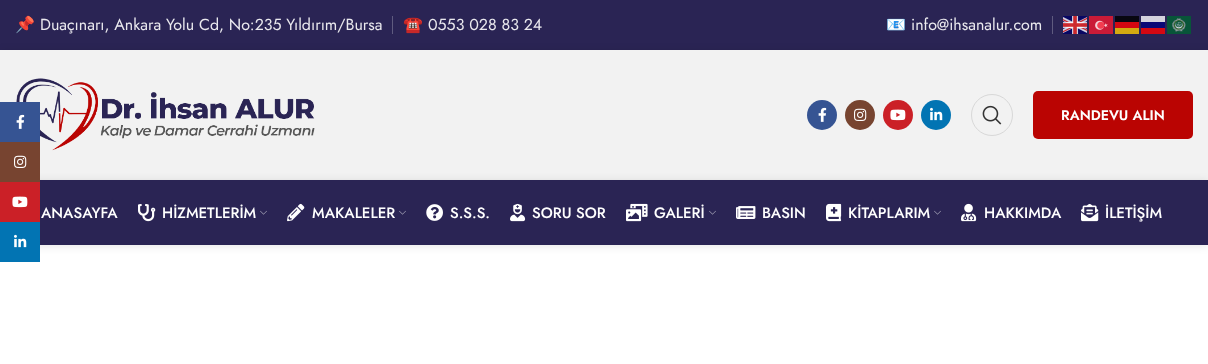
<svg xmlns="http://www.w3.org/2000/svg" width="1208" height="364">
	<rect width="100%" height="100%" fill="#FFFFFF" />
	<rect x="0" y="0" width="1208" height="50" fill="#2A2454" />
	<text x="15" y="30" font-family="Noto Color Emoji" font-size="16" fill="#EAE9EE">📌</text>
	<text x="40" y="30" font-family="Jost" font-size="16" fill="#EAE9EE">Duaçınarı, Ankara Yolu Cd, No:235 Yıldırım/Bursa</text>
	<rect x="392" y="16" width="1" height="18" fill="#5F5B7F" />
	<text x="403" y="30" font-family="Noto Color Emoji" font-size="16" fill="#EAE9EE">☎️</text>
	<text x="428" y="30" font-family="Jost" font-size="16" fill="#EAE9EE">0553 028 83 24</text>
	<text x="886" y="30" font-family="Noto Color Emoji" font-size="16" fill="#EAE9EE">📧</text>
	<text x="911" y="30" font-family="Jost" font-size="16" fill="#EAE9EE">info@ihsanalur.com</text>
	<rect x="1052" y="16" width="1" height="18" fill="#5F5B7F" />
	<image x="1063" y="16" width="24" height="18" href="assets/img1.png" />
	<image x="1089" y="16" width="24" height="18" href="assets/img2.png" />
	<rect x="1115" y="16" width="24" height="6" fill="#080711" />
	<rect x="1141" y="16" width="24" height="6" fill="#D4D3DD" />
	<image x="1167" y="16" width="24" height="18" href="assets/img3.png" />
	<rect x="1115" y="22" width="24" height="6" fill="#D40711" />
	<rect x="1141" y="22" width="24" height="6" fill="#090876" />
	<rect x="1115" y="28" width="24" height="6" fill="#D4AA11" />
	<rect x="1141" y="28" width="24" height="6" fill="#D40812" />
	<rect x="0" y="51" width="1208" height="130" fill="#000000" fill-opacity="0.1" filter="blur(4px)" />
	<rect x="0" y="50" width="1208" height="130" fill="#F2F2F2" />
	<image x="16" y="78" width="299" height="73" href="assets/img4.png" />
	<circle cx="822" cy="115" r="15" fill="#365493" />
	<image x="818" y="107" width="9" height="15" href="assets/img5.png" />
	<circle cx="860" cy="115" r="15" fill="#774430" />
	<image x="854" y="108" width="13" height="13" href="assets/img6.png" />
	<circle cx="898" cy="115" r="15" fill="#CB2027" />
	<image x="890" y="109" width="16" height="12" href="assets/img7.png" />
	<circle cx="936" cy="115" r="15" fill="#0274B3" />
	<image x="930" y="107" width="13" height="14" href="assets/img8.png" />
	<circle cx="992" cy="115" r="20.5" fill="none" stroke="#D8D8D8" />
	<image x="982" y="105" width="20" height="20" href="assets/img9.png" />
	<rect x="1033" y="91" width="160" height="48" rx="5" fill="#BA0402" />
	<text x="1061" y="120" font-family="Jost" font-size="14" font-weight="600" fill="#FFFFFF">RANDEVU ALIN</text>
	<rect x="0" y="181" width="1208" height="65" fill="#000000" fill-opacity="0.1" filter="blur(4px)" />
	<rect x="40" y="180" width="1168" height="65" fill="#2A2454" />
	<text x="41" y="218" font-family="Jost" font-size="15" font-weight="500" fill="#FFFFFF">ANASAYFA</text>
	<image x="138" y="204" width="18" height="18" href="assets/img10.png" />
	<text x="162" y="218" font-family="Jost" font-size="15" font-weight="500" fill="#FFFFFF">HİZMETLERİM</text>
	<image x="260" y="210" width="7" height="5" href="assets/img11.png" />
	<image x="287" y="203" width="18" height="19" href="assets/img12.png" />
	<text x="312" y="218" font-family="Jost" font-size="15" font-weight="500" fill="#FFFFFF">MAKALELER</text>
	<image x="399" y="210" width="7" height="5" href="assets/img11.png" />
	<image x="426" y="204" width="17" height="17" href="assets/img13.png" />
	<text x="450" y="218" font-family="Jost" font-size="15" font-weight="500" fill="#FFFFFF">S.S.S.</text>
	<image x="510" y="203" width="16" height="19" href="assets/img14.png" />
	<text x="532" y="218" font-family="Jost" font-size="15" font-weight="500" fill="#FFFFFF">SORU SOR</text>
	<image x="626" y="203" width="22" height="19" href="assets/img15.png" />
	<text x="654" y="218" font-family="Jost" font-size="15" font-weight="500" fill="#FFFFFF">GALERİ</text>
	<image x="709" y="210" width="7" height="5" href="assets/img11.png" />
	<image x="736" y="206" width="20" height="13" href="assets/img16.png" />
	<text x="762" y="218" font-family="Jost" font-size="15" font-weight="500" fill="#FFFFFF">BASIN</text>
	<image x="826" y="203" width="16" height="19" href="assets/img17.png" />
	<text x="848" y="218" font-family="Jost" font-size="15" font-weight="500" fill="#FFFFFF">KİTAPLARIM</text>
	<image x="934" y="210" width="7" height="5" href="assets/img11.png" />
	<image x="961" y="203" width="16" height="19" href="assets/img18.png" />
	<text x="984" y="218" font-family="Jost" font-size="15" font-weight="500" fill="#FFFFFF">HAKKIMDA</text>
	<image x="1081" y="203" width="18" height="19" href="assets/img19.png" />
	<text x="1105" y="218" font-family="Jost" font-size="15" font-weight="500" fill="#FFFFFF">İLETİŞİM</text>
	<rect x="0" y="102" width="40" height="40" fill="#365493" />
	<image x="16" y="114" width="9" height="15" href="assets/img5.png" />
	<rect x="0" y="142" width="40" height="40" fill="#774430" />
	<image x="14" y="155" width="13" height="13" href="assets/img6.png" />
	<rect x="0" y="182" width="40" height="40" fill="#CB2027" />
	<image x="12" y="196" width="16" height="12" href="assets/img7.png" />
	<rect x="0" y="222" width="40" height="40" fill="#0274B3" />
	<image x="14" y="234" width="13" height="14" href="assets/img8.png" />
</svg>
